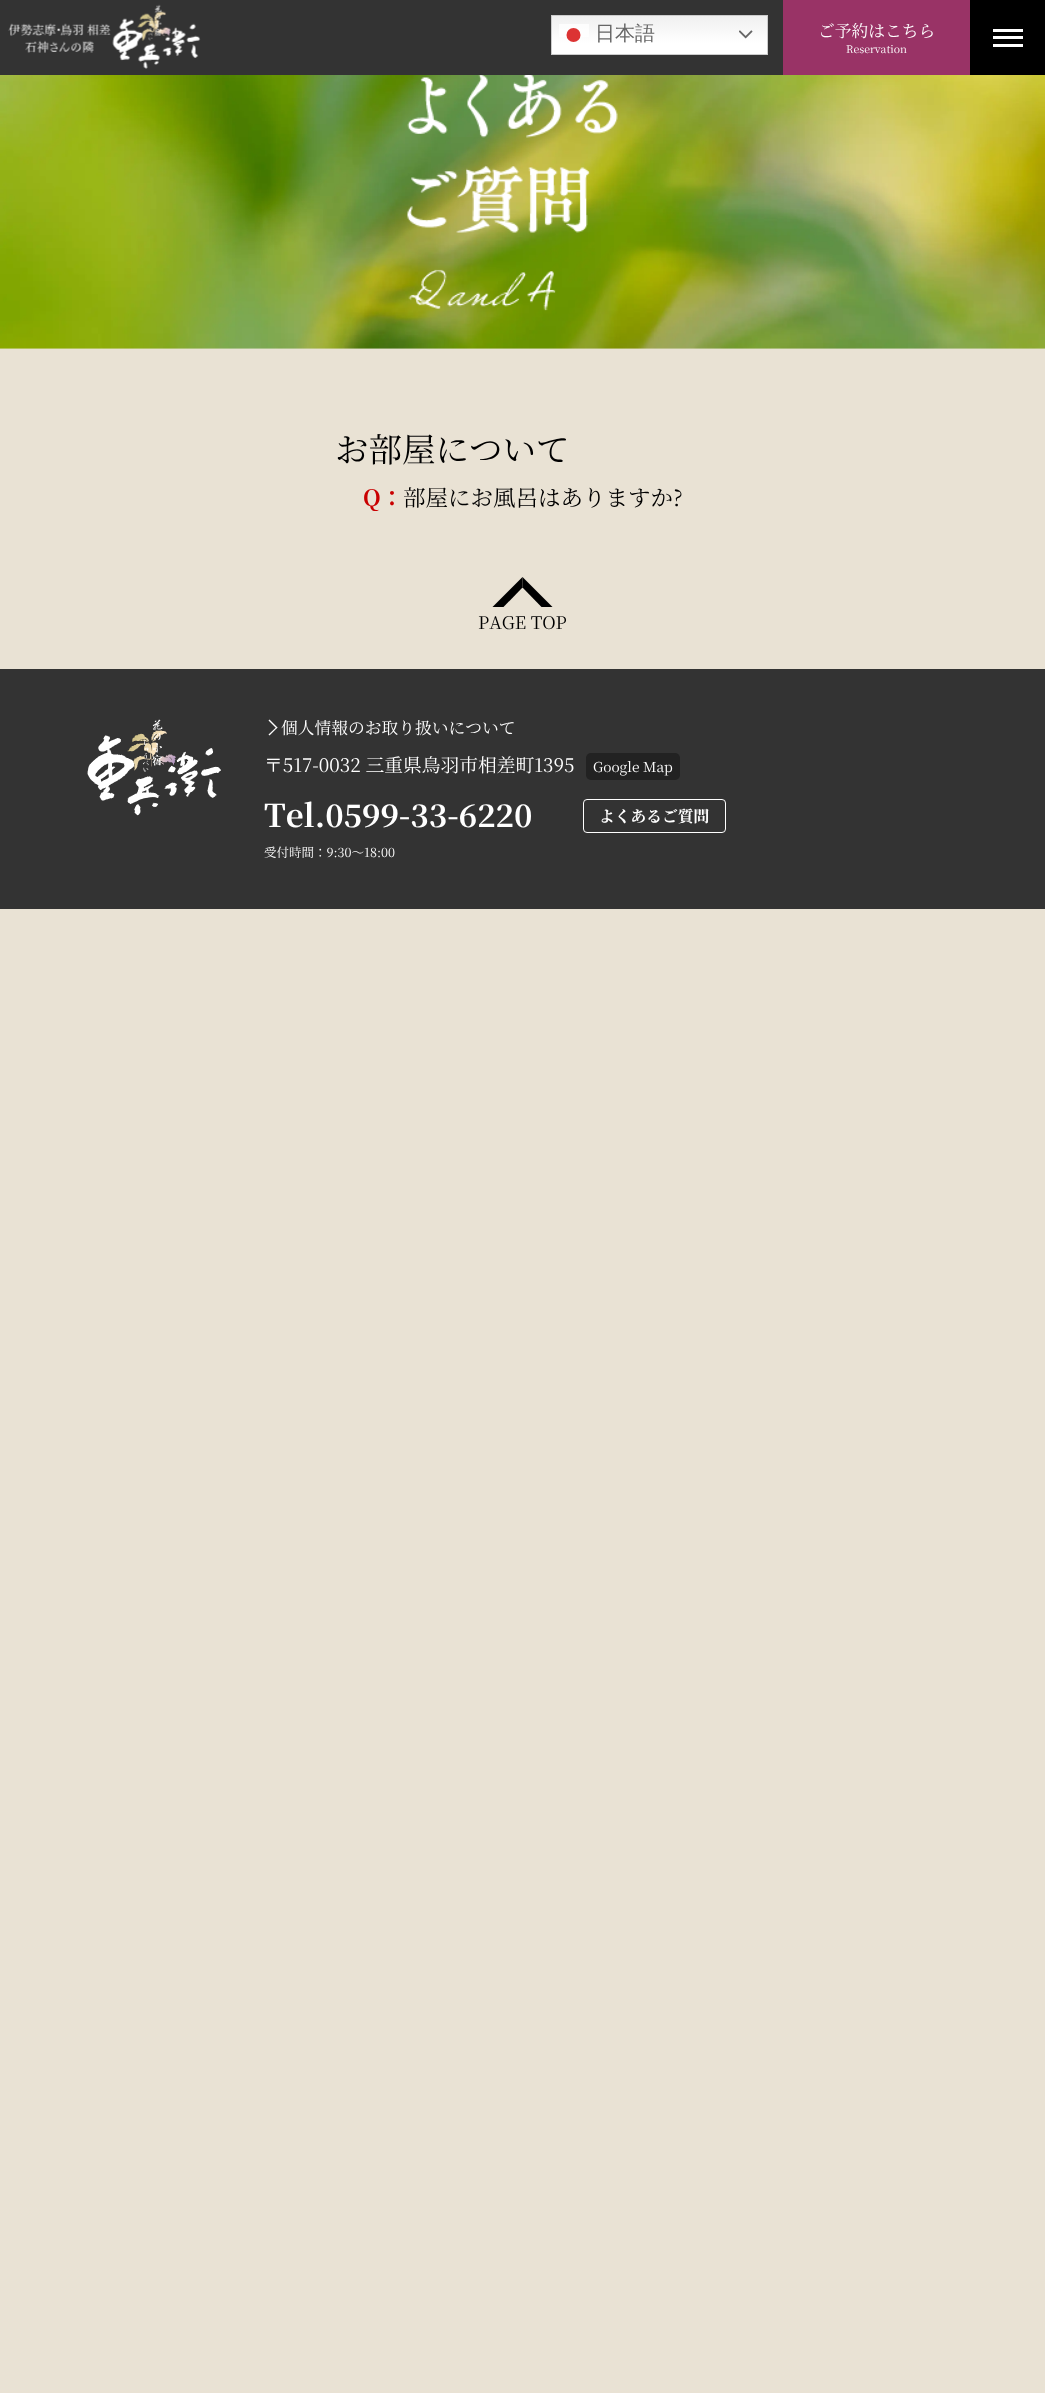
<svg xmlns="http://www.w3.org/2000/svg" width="1045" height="2393">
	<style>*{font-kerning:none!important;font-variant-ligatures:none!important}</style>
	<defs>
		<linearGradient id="g1" gradientUnits="userSpaceOnUse" x1="659" y1="15" x2="659" y2="55"><stop offset="0" stop-color="#EFEFEF" /><stop offset="0.7" stop-color="#FFFFFF" /></linearGradient>
	</defs>
	<rect width="100%" height="100%" fill="#E9E2D4" />
	<rect x="0" y="0" width="783" height="75" fill="#333333" />
	<image x="8" y="4" width="193" height="65" href="assets/img1.png" />
	<rect x="552" y="16" width="215" height="38" fill="url(#g1)" />
	<rect x="551.5" y="15.5" width="216" height="39" fill="none" stroke="#CCCCCC" />
	<rect x="559" y="24" width="30" height="13" fill="#FFFFFF" fill-opacity="0.8" />
	<text x="595" y="40" font-family="WenQuanYi Zen Hei" font-size="20" font-weight="500" fill="#666666">日本語</text>
	<circle cx="573.5" cy="35" r="7" fill="#DC3333" />
	<image x="739" y="30" width="14" height="9" href="assets/img2.png" />
	<rect x="783" y="0" width="187" height="75" fill="#993366" />
	<text x="818" y="37" font-family="Noto Serif JP" font-size="16.75" fill="#FFFFFF">ご予約はこちら</text>
	<text x="846" y="53" font-family="Noto Serif JP" font-size="10.5" fill="#FFFFFF">Reservation</text>
	<rect x="970" y="0" width="75" height="75" fill="#000000" />
	<rect x="993" y="36" width="30" height="3" fill="#FFFFFF" />
	<rect x="993" y="29" width="30" height="3" fill="#FFFFFF" />
	<rect x="993" y="44" width="30" height="3" fill="#FFFFFF" />
	<image x="0" y="75" width="1045" height="274" href="assets/img3.png" />
	<image x="407" y="75" width="211" height="236" href="assets/img4.png" />
	<text x="335" y="462" font-family="Noto Serif JP" font-size="33.5" fill="#000000">お部屋について</text>
	<text x="363" y="506" font-family="Noto Serif JP" font-size="22.5" font-weight="700" fill="#C90000">Q：</text>
	<text x="403" y="506" font-family="Noto Serif JP" font-size="22.5" fill="#000000">部屋にお風呂はありますか?</text>
	<rect x="0" y="669" width="1045" height="240" fill="#333333" />
	<path d="M522.5 577L552.5 607H541.5L522.5 587.5Z" fill="#000000" />
	<path d="M492.5 607L522.5 577V587.5L503.5 607Z" fill="#000000" />
	<text x="478" y="629" font-family="Noto Serif JP" font-size="17.5" fill="#000000">PAGE TOP</text>
	<image x="87" y="719" width="134" height="97" href="assets/img5.png" />
	<path d="M269.5 719.5L277.5 727.5L276.5 728.5L268.5 720.5Z" fill="#FFFFFF" />
	<path d="M276.5 727L277.5 727.5L269.5 735.5L268.5 734.5Z" fill="#FFFFFF" />
	<text x="281" y="734" font-family="Noto Serif JP" font-size="16.75" fill="#FFFFFF">個人情報のお取り扱いについて</text>
	<text x="264" y="772" font-family="Noto Serif JP" font-size="18.75" fill="#FFFFFF">〒517-0032 三重県鳥羽市相差町1395</text>
	<rect x="586" y="753" width="94" height="27" rx="5" fill="#222222" />
	<text x="593" y="772" font-family="Noto Serif JP" font-size="13.75" fill="#FFFFFF">Google Map</text>
	<text x="264" y="827" font-family="Noto Serif JP" font-size="31.25" font-weight="700" fill="#FFFFFF">Tel.0599-33-6220</text>
	<text x="264" y="857" font-family="Noto Serif JP" font-size="12.5" fill="#FFFFFF">受付時間：9:30～18:00</text>
	<rect x="583.5" y="799.5" width="142" height="33" rx="3.5" fill="none" stroke="#FFFFFF" />
	<text x="599" y="822" font-family="Noto Serif JP" font-size="15.75" font-weight="700" fill="#FFFFFF">よくあるご質問</text>
</svg>
